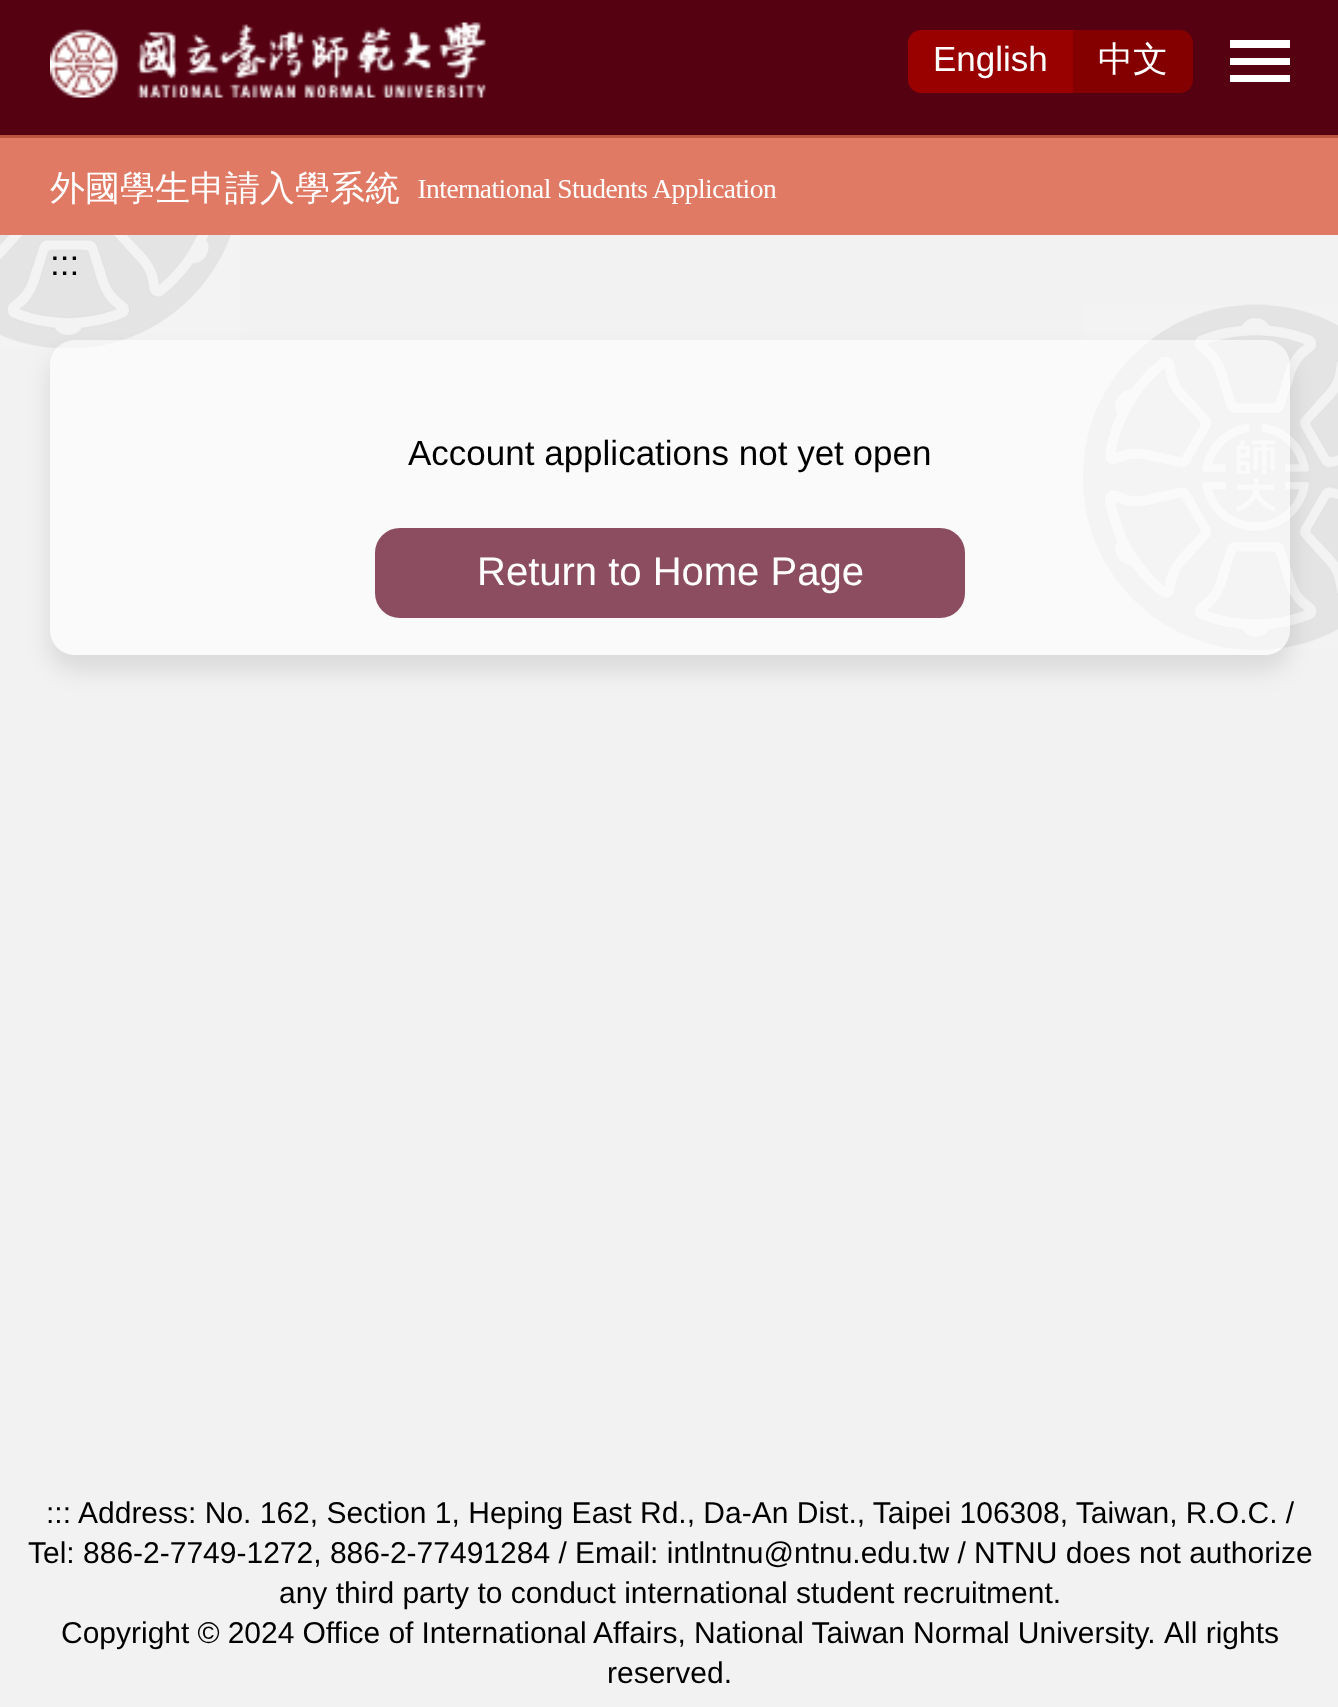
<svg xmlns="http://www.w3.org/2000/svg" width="1338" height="1707">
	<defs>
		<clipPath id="clip1"><path d="M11 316H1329V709H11ZM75 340H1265C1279 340 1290 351 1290 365V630C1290 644 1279 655 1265 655H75C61 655 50 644 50 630V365C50 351 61 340 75 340Z" clip-rule="evenodd" /></clipPath>
	</defs>
	<rect width="100%" height="100%" fill="#F2F2F2" />
	<image x="0" y="235" width="1338" height="415" href="assets/img1.png" />
	<rect x="0" y="0" width="1338" height="135" fill="#560112" />
	<image x="50" y="22" width="436" height="76" href="assets/img2.png" />
	<path d="M921 30H1073V93H921C914 93 908 87 908 80V43C908 36 914 30 921 30Z" fill="#990000" />
	<text x="933" y="71" font-family="Liberation Sans" font-size="35" fill="#FFFFFF">English</text>
	<path d="M1073 30H1180C1187 30 1193 36 1193 43V80C1193 87 1187 93 1180 93H1073Z" fill="#840000" />
	<text x="1098" y="71" font-family="WenQuanYi Zen Hei" font-size="35" font-weight="500" fill="#FFFFFF">中文</text>
	<path d="M1230 82V75H1290V82ZM1230 65V58H1290V65ZM1230 48V40H1290V48Z" fill="#FFFFFF" />
	<rect x="0" y="138" width="1338" height="97" fill="#E17A64" />
	<rect x="0" y="135" width="1338" height="3" fill="#BB543E" />
	<image x="50" y="170" width="727" height="36" href="assets/img3.png" />
	<text x="50" y="275" font-family="Liberation Sans" font-size="35" fill="#000000">:::</text>
	<g clip-path="url(#clip1)">
		<rect x="50" y="355" width="1240" height="315" rx="25" fill="#000000" fill-opacity="0.1" filter="blur(12.5px)" />
	</g>
	<rect x="50" y="340" width="1240" height="315" rx="25" fill="#FFFFFF" fill-opacity="0.6" />
	<text x="408" y="465" font-family="Liberation Sans" font-size="35" fill="#000000">Account applications not yet open</text>
	<rect x="376.5" y="529.5" width="587" height="87" rx="23.5" fill="#8C4D60" stroke="#8C4D60" stroke-width="3" />
	<text x="477" y="585" font-family="Liberation Sans" font-size="40" fill="#FFFFFF">Return to Home Page</text>
	<g font-family="Liberation Sans" font-size="30" fill="#000000">
		<text x="46" y="1523">:::</text>
		<text x="78" y="1523">Address: No. 162, Section 1, Heping East Rd., Da-An Dist., Taipei 106308, Taiwan, R.O.C. /</text>
		<text x="28" y="1563">Tel: 886-2-7749-1272, 886-2-77491284 / Email: intlntnu@ntnu.edu.tw / NTNU does not authorize</text>
		<text x="279" y="1603">any third party to conduct international student recruitment.</text>
		<text x="61" y="1643" word-spacing="-0.25">Copyright © 2024 Office of International Affairs, National Taiwan Normal University.</text>
		<text x="1164" y="1643">All rights</text>
		<text x="607" y="1683">reserved.</text>
	</g>
</svg>
